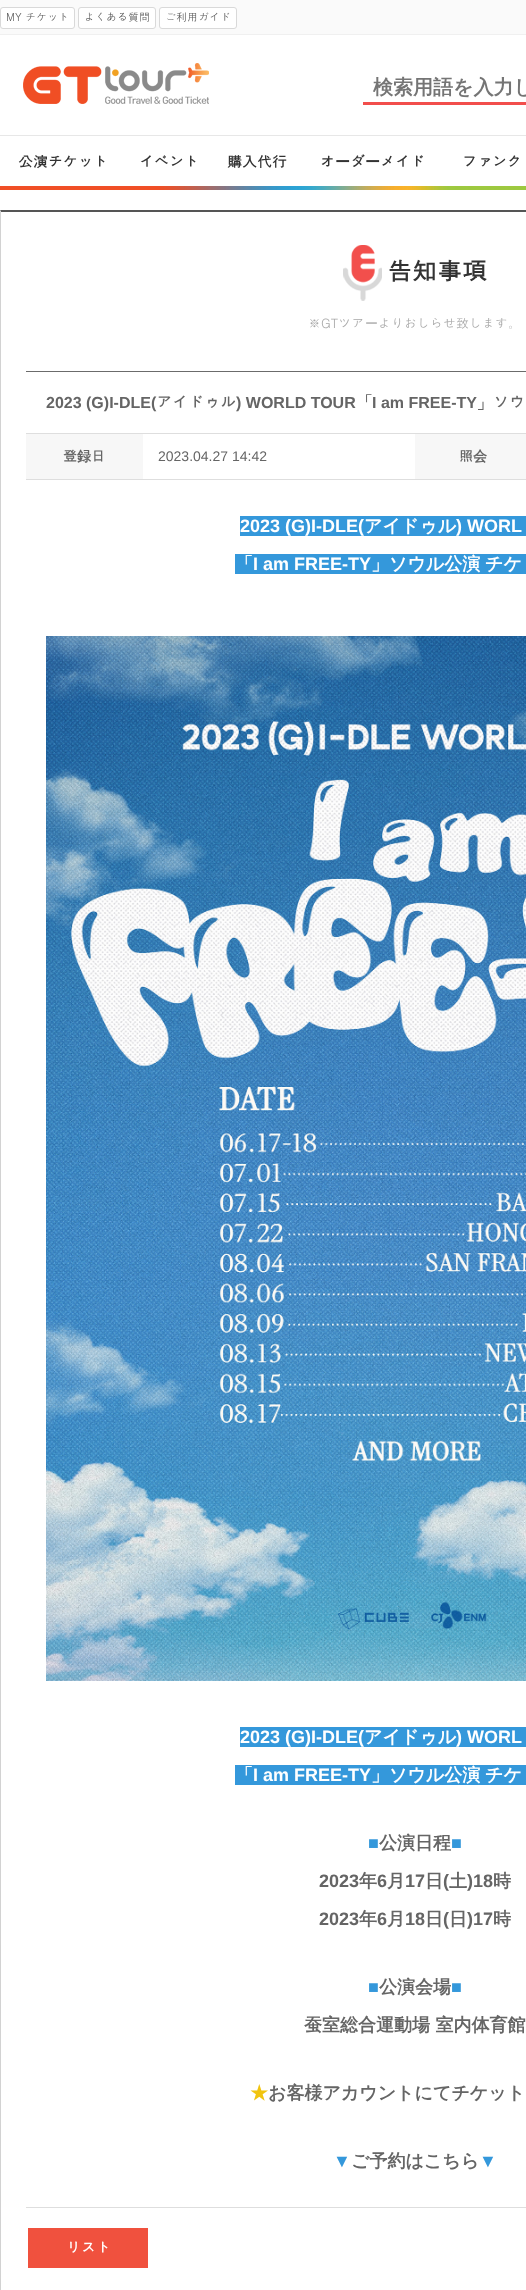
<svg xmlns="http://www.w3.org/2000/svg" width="526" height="2290">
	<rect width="100%" height="100%" fill="#FFFFFF" />
	<rect x="0" y="0" width="526" height="34" fill="#FAFAFA" />
	<rect x="0" y="34" width="526" height="1" fill="#F0F0F0" />
	<rect x="0.5" y="7.5" width="74" height="21" rx="2.5" fill="#FFFFFF" stroke="#D9D9D9" />
	<text x="6" y="21" font-family="Dotum" font-size="11" fill="#5E5E5E">MY チケット</text>
	<rect x="78.5" y="7.5" width="77" height="21" rx="2.5" fill="#FFFFFF" stroke="#D9D9D9" />
	<text x="84" y="21" font-family="Dotum" font-size="11" fill="#5E5E5E">よくある質問</text>
	<rect x="159.5" y="7.5" width="77" height="21" rx="2.5" fill="#FFFFFF" stroke="#D9D9D9" />
	<text x="165" y="21" font-family="Dotum" font-size="11" fill="#5E5E5E">ご利用ガイド</text>
	<rect x="0" y="135" width="526" height="1" fill="#E7E7E7" />
	<image x="23" y="63" width="186" height="41" href="assets/img1.png" />
	<rect x="363" y="102" width="163" height="3" fill="#F24E4C" />
	<text x="373" y="94" font-family="WenQuanYi Zen Hei" font-size="20" font-weight="700" fill="#757575">検索用語を入力し</text>
	<g font-family="Dotum" font-size="15" font-weight="700" fill="#333333">
		<text x="18" y="167">公演チケット</text>
		<text x="139" y="167">イベント</text>
		<text x="227" y="167">購入代行</text>
		<text x="320" y="167">オ</text>
	</g>
	<text x="335" y="167" font-family="WenQuanYi Zen Hei" font-size="15" font-weight="700" fill="#333333">ー</text>
	<text x="350" y="167" font-family="Dotum" font-size="15" font-weight="700" fill="#333333">ダ</text>
	<text x="365" y="167" font-family="WenQuanYi Zen Hei" font-size="15" font-weight="700" fill="#333333">ー</text>
	<g font-family="Dotum" font-size="15" font-weight="700" fill="#333333">
		<text x="380" y="167">メイド</text>
		<text x="462" y="167">ファンク</text>
	</g>
	<image x="0" y="186" width="526" height="4" href="assets/img2.png" />
	<path d="M0 210H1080L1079 212H1Z" fill="#555555" />
	<path d="M0 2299V210L1 212V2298Z" fill="#D2D2D2" />
	<image x="343" y="245" width="39" height="56" href="assets/img3.png" />
	<text x="387" y="280" font-family="Dotum" font-size="25" font-weight="700" fill="#333333">告知事項</text>
	<text x="308" y="328" font-family="Dotum" font-size="13" fill="#A8A8A8">※GTツア</text>
	<text x="365" y="328" font-family="WenQuanYi Zen Hei" font-size="13" font-weight="500" fill="#A8A8A8">ー</text>
	<text x="378" y="328" font-family="Dotum" font-size="13" fill="#A8A8A8">よりおしらせ致します。</text>
	<rect x="26" y="371" width="500" height="1" fill="#6B6B6B" />
	<rect x="26" y="433" width="500" height="1" fill="#DEDEDE" />
	<text x="46" y="408" font-family="Liberation Sans" font-size="16" font-weight="700" fill="#656565">2023 (G)I-DLE(</text>
	<text x="156" y="408" font-family="Dotum" font-size="16" font-weight="700" fill="#656565">アイドゥル</text>
	<text x="236" y="408" font-family="Liberation Sans" font-size="16" font-weight="700" fill="#656565">) WORLD TOUR</text>
	<text x="356" y="408" font-family="Dotum" font-size="16" font-weight="700" fill="#656565">「</text>
	<text x="372" y="408" font-family="Liberation Sans" font-size="16" font-weight="700" fill="#656565">I am FREE-TY</text>
	<text x="477" y="408" font-family="Dotum" font-size="16" font-weight="700" fill="#656565">」ソウ</text>
	<rect x="26" y="434" width="117" height="45" fill="#F7F7F7" />
	<rect x="26" y="479" width="500" height="1" fill="#DEDEDE" />
	<text x="63" y="461" font-family="Dotum" font-size="14" font-weight="700" fill="#656565">登</text>
	<text x="77" y="461" font-family="WenQuanYi Zen Hei" font-size="14" font-weight="700" fill="#656565">録</text>
	<text x="91" y="461" font-family="Dotum" font-size="14" font-weight="700" fill="#656565">日</text>
	<text x="158" y="461" font-family="Liberation Sans" font-size="14" fill="#656565">2023.04.27 14:42</text>
	<rect x="415" y="434" width="111" height="45" fill="#F7F7F7" />
	<text x="459" y="461" font-family="Dotum" font-size="14" font-weight="700" fill="#656565">照</text>
	<text x="473" y="461" font-family="WenQuanYi Zen Hei" font-size="14" font-weight="700" fill="#656565">会</text>
	<rect x="26" y="2207" width="500" height="1" fill="#DEDEDE" />
	<rect x="240" y="516" width="286" height="20" fill="#3498DB" />
	<text x="240" y="532" font-family="Liberation Sans" font-size="18" font-weight="700" fill="#FFFFFF">2023 (G)I-DLE(</text>
	<text x="364" y="532" font-family="WenQuanYi Zen Hei" font-size="18" font-weight="700" fill="#FFFFFF">アイドゥル</text>
	<text x="456" y="532" font-family="Liberation Sans" font-size="18" font-weight="700" fill="#FFFFFF">) WORL</text>
	<rect x="235" y="554" width="291" height="20" fill="#3498DB" />
	<text x="235" y="570" font-family="WenQuanYi Zen Hei" font-size="18" font-weight="700" fill="#FFFFFF">「</text>
	<text x="253" y="570" font-family="Liberation Sans" font-size="18" font-weight="700" fill="#FFFFFF">I am FREE-TY</text>
	<g font-family="WenQuanYi Zen Hei" font-size="18" font-weight="700" fill="#FFFFFF">
		<text x="371" y="570">」ソウル公演</text>
		<text x="485" y="570">チケ</text>
	</g>
	<image x="46" y="636" width="480" height="1045" href="assets/img4.png" />
	<rect x="240" y="1727" width="286" height="20" fill="#3498DB" />
	<text x="240" y="1743" font-family="Liberation Sans" font-size="18" font-weight="700" fill="#FFFFFF">2023 (G)I-DLE(</text>
	<text x="364" y="1743" font-family="WenQuanYi Zen Hei" font-size="18" font-weight="700" fill="#FFFFFF">アイドゥル</text>
	<text x="456" y="1743" font-family="Liberation Sans" font-size="18" font-weight="700" fill="#FFFFFF">) WORL</text>
	<rect x="235" y="1765" width="291" height="20" fill="#3498DB" />
	<text x="235" y="1781" font-family="WenQuanYi Zen Hei" font-size="18" font-weight="700" fill="#FFFFFF">「</text>
	<text x="253" y="1781" font-family="Liberation Sans" font-size="18" font-weight="700" fill="#FFFFFF">I am FREE-TY</text>
	<g font-family="WenQuanYi Zen Hei" font-size="18" font-weight="700" fill="#FFFFFF">
		<text x="371" y="1781">」ソウル公演</text>
		<text x="485" y="1781">チケ</text>
	</g>
	<text x="368" y="1849" font-family="Liberation Sans" font-size="18" font-weight="700" fill="#3498DB">■</text>
	<text x="379" y="1849" font-family="WenQuanYi Zen Hei" font-size="18" font-weight="700" fill="#656565">公演日程</text>
	<text x="451" y="1849" font-family="Liberation Sans" font-size="18" font-weight="700" fill="#3498DB">■</text>
	<text x="319" y="1887" font-family="Liberation Sans" font-size="18" font-weight="700" fill="#656565">2023</text>
	<text x="359" y="1887" font-family="WenQuanYi Zen Hei" font-size="18" font-weight="700" fill="#656565">年</text>
	<text x="377" y="1887" font-family="Liberation Sans" font-size="18" font-weight="700" fill="#656565">6</text>
	<text x="387" y="1887" font-family="WenQuanYi Zen Hei" font-size="18" font-weight="700" fill="#656565">月</text>
	<text x="405" y="1887" font-family="Liberation Sans" font-size="18" font-weight="700" fill="#656565">17</text>
	<text x="425" y="1887" font-family="WenQuanYi Zen Hei" font-size="18" font-weight="700" fill="#656565">日</text>
	<text x="443" y="1887" font-family="Liberation Sans" font-size="18" font-weight="700" fill="#656565">(</text>
	<text x="449" y="1887" font-family="WenQuanYi Zen Hei" font-size="18" font-weight="700" fill="#656565">土</text>
	<text x="467" y="1887" font-family="Liberation Sans" font-size="18" font-weight="700" fill="#656565">)18</text>
	<text x="493" y="1887" font-family="WenQuanYi Zen Hei" font-size="18" font-weight="700" fill="#656565">時</text>
	<text x="319" y="1925" font-family="Liberation Sans" font-size="18" font-weight="700" fill="#656565">2023</text>
	<text x="359" y="1925" font-family="WenQuanYi Zen Hei" font-size="18" font-weight="700" fill="#656565">年</text>
	<text x="377" y="1925" font-family="Liberation Sans" font-size="18" font-weight="700" fill="#656565">6</text>
	<text x="387" y="1925" font-family="WenQuanYi Zen Hei" font-size="18" font-weight="700" fill="#656565">月</text>
	<text x="405" y="1925" font-family="Liberation Sans" font-size="18" font-weight="700" fill="#656565">18</text>
	<text x="425" y="1925" font-family="WenQuanYi Zen Hei" font-size="18" font-weight="700" fill="#656565">日</text>
	<text x="443" y="1925" font-family="Liberation Sans" font-size="18" font-weight="700" fill="#656565">(</text>
	<text x="449" y="1925" font-family="WenQuanYi Zen Hei" font-size="18" font-weight="700" fill="#656565">日</text>
	<text x="467" y="1925" font-family="Liberation Sans" font-size="18" font-weight="700" fill="#656565">)17</text>
	<text x="493" y="1925" font-family="WenQuanYi Zen Hei" font-size="18" font-weight="700" fill="#656565">時</text>
	<text x="368" y="1993" font-family="Liberation Sans" font-size="18" font-weight="700" fill="#3498DB">■</text>
	<text x="379" y="1993" font-family="WenQuanYi Zen Hei" font-size="18" font-weight="700" fill="#656565">公演会場</text>
	<text x="451" y="1993" font-family="Liberation Sans" font-size="18" font-weight="700" fill="#3498DB">■</text>
	<text x="304" y="2031" font-family="WenQuanYi Zen Hei" font-size="18" font-weight="700" fill="#656565">蚕室総合運動場 室内体育館</text>
	<text x="250" y="2099" font-family="WenQuanYi Zen Hei" font-size="18" font-weight="700" fill="#F1C40F">★</text>
	<text x="268" y="2099" font-family="WenQuanYi Zen Hei" font-size="18" font-weight="700" fill="#656565">お客様アカウントにてチケット</text>
	<text x="333" y="2167" font-family="Liberation Sans" font-size="18" font-weight="700" fill="#3498DB">▼</text>
	<text x="351" y="2167" font-family="WenQuanYi Zen Hei" font-size="18" font-weight="700" fill="#656565">ご予約はこちら</text>
	<text x="479" y="2167" font-family="Liberation Sans" font-size="18" font-weight="700" fill="#3498DB">▼</text>
	<rect x="28" y="2228" width="120" height="40" fill="#F0513E" />
	<text x="66" y="2253" font-family="Dotum" font-size="15" font-weight="700" fill="#FFFFFF">リスト</text>
</svg>
